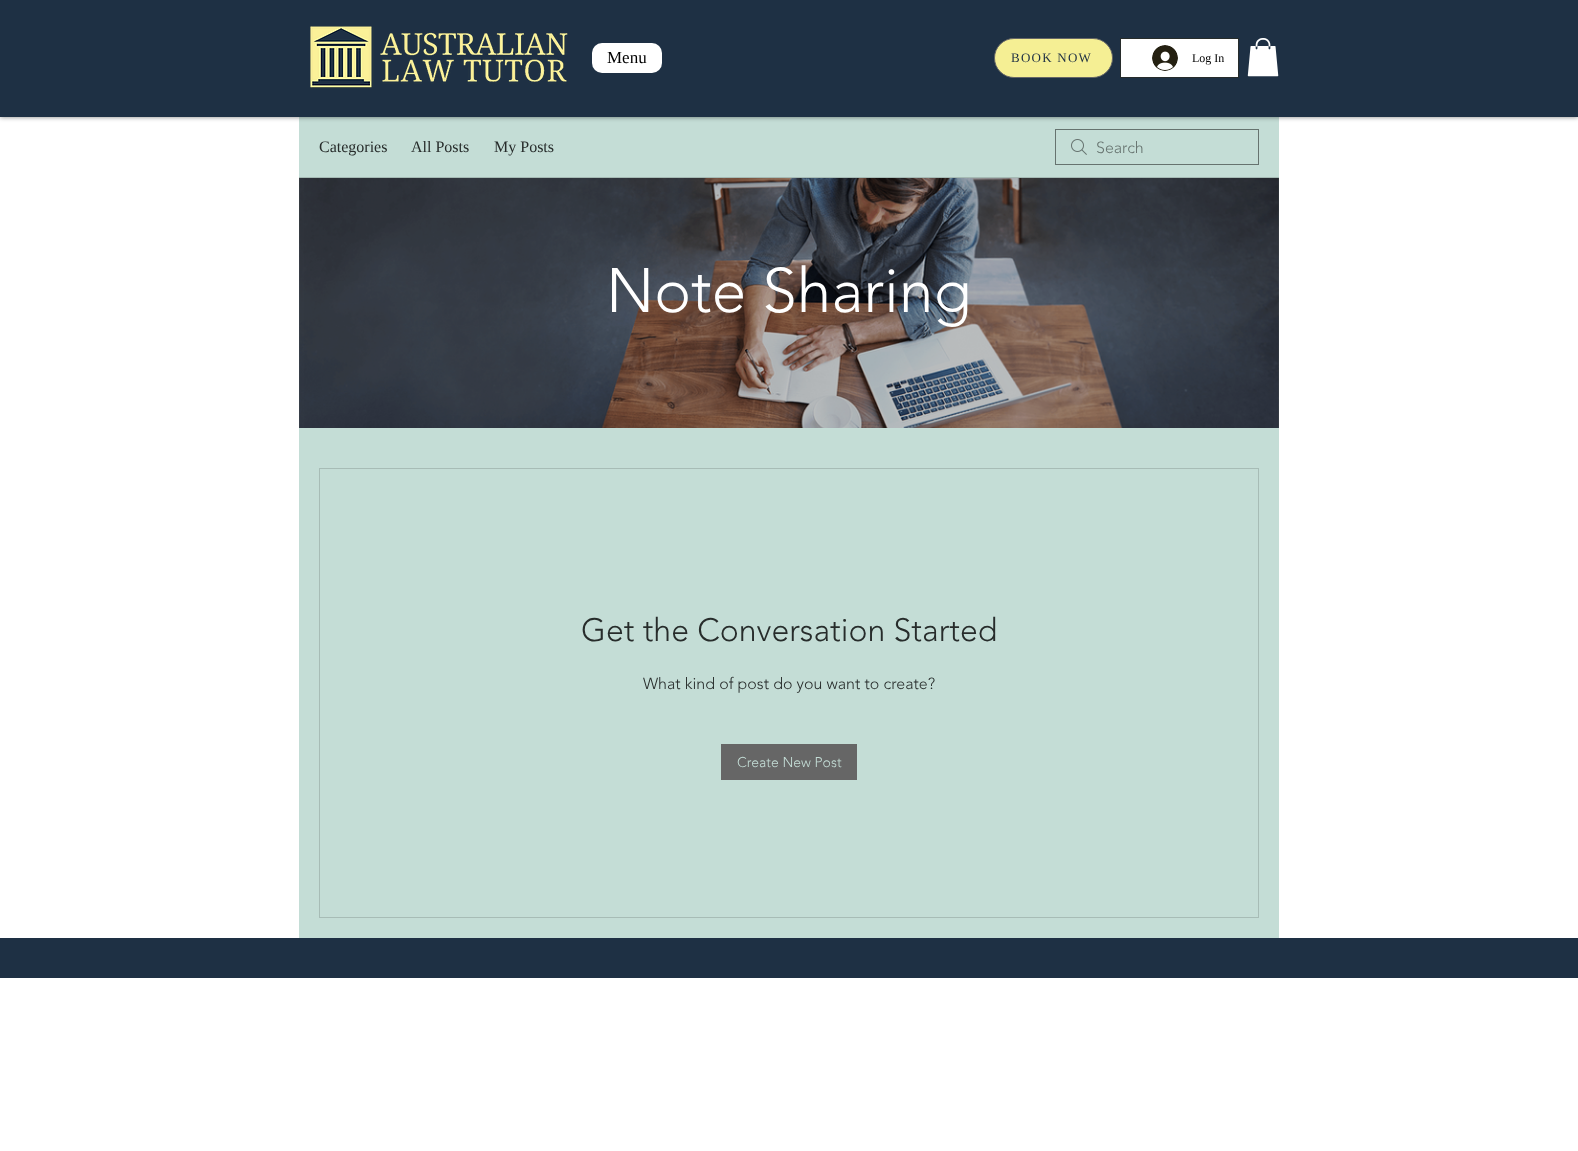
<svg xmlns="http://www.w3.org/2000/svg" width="1578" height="1151">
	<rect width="100%" height="100%" fill="#FFFFFF" />
	<rect x="299" y="117" width="980" height="821" fill="#C4DDD6" />
	<rect x="0" y="0" width="1578" height="117" fill="#000000" fill-opacity="0.5" filter="blur(2.5px)" />
	<rect x="0" y="0" width="1578" height="117" fill="#1E3044" />
	<image x="310" y="26" width="258" height="62" href="assets/img1.png" />
	<rect x="592" y="43" width="70" height="30" rx="10" fill="#FFFFFF" />
	<text x="607" y="63" font-family="Liberation Serif" font-size="17" fill="#000000">Menu</text>
	<rect x="994.5" y="38.5" width="118" height="39" rx="19.5" fill="#F5EF94" stroke="#666666" />
	<text x="1011" y="62" font-family="Liberation Serif" font-size="13" letter-spacing="1.25" fill="#1E3044">BOOK NOW</text>
	<rect x="1120.5" y="38.5" width="118" height="39" fill="#FFFFFF" stroke="#272C2B" />
	<image x="1152" y="45" width="26" height="26" href="assets/img2.png" />
	<text x="1192" y="62" font-family="Liberation Serif" font-size="12" fill="#000000">Log In</text>
	<image x="1247" y="38" width="32" height="39" href="assets/img3.png" />
	<rect x="299" y="177" width="980" height="1" fill="#A5BAB4" />
	<g font-family="Liberation Serif" font-size="16" fill="#272C2B">
		<text x="319" y="152">Categories</text>
		<text x="411" y="152">All Posts</text>
		<text x="494" y="152">My Posts</text>
	</g>
	<image x="1071" y="139" width="16" height="16" href="assets/img4.png" />
	<rect x="1055.5" y="129.5" width="203" height="35" fill="none" stroke="#66736F" />
	<text x="1096" y="153" font-family="'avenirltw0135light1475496'" font-size="16" font-weight="300" fill="#66736F">Search</text>
	<image x="299" y="178" width="980" height="250" href="assets/img5.png" />
	<text x="606" y="312" font-family="'avenirltw0135light1475496'" font-size="62" font-weight="300" fill="#FFFFFF">Note Sharing</text>
	<rect x="319.5" y="468.5" width="939" height="449" fill="none" stroke="#A7BCB6" />
	<text x="581" y="641" font-family="'avenirltw0135light1475496'" font-size="32" font-weight="300" fill="#272C2B">Get the Conversation Started</text>
	<text x="643" y="689" font-family="'avenirltw0135light1475496'" font-size="16" font-weight="300" fill="#272C2B">What kind of post do you want to create?</text>
	<rect x="721" y="744" width="136" height="36" fill="#666666" />
	<text x="737" y="767" font-family="'avenirltw0135light1475496'" font-size="14" font-weight="300" fill="#C4DDD6">Create New Post</text>
	<rect x="0" y="938" width="1578" height="40" fill="#1E3044" />
</svg>
